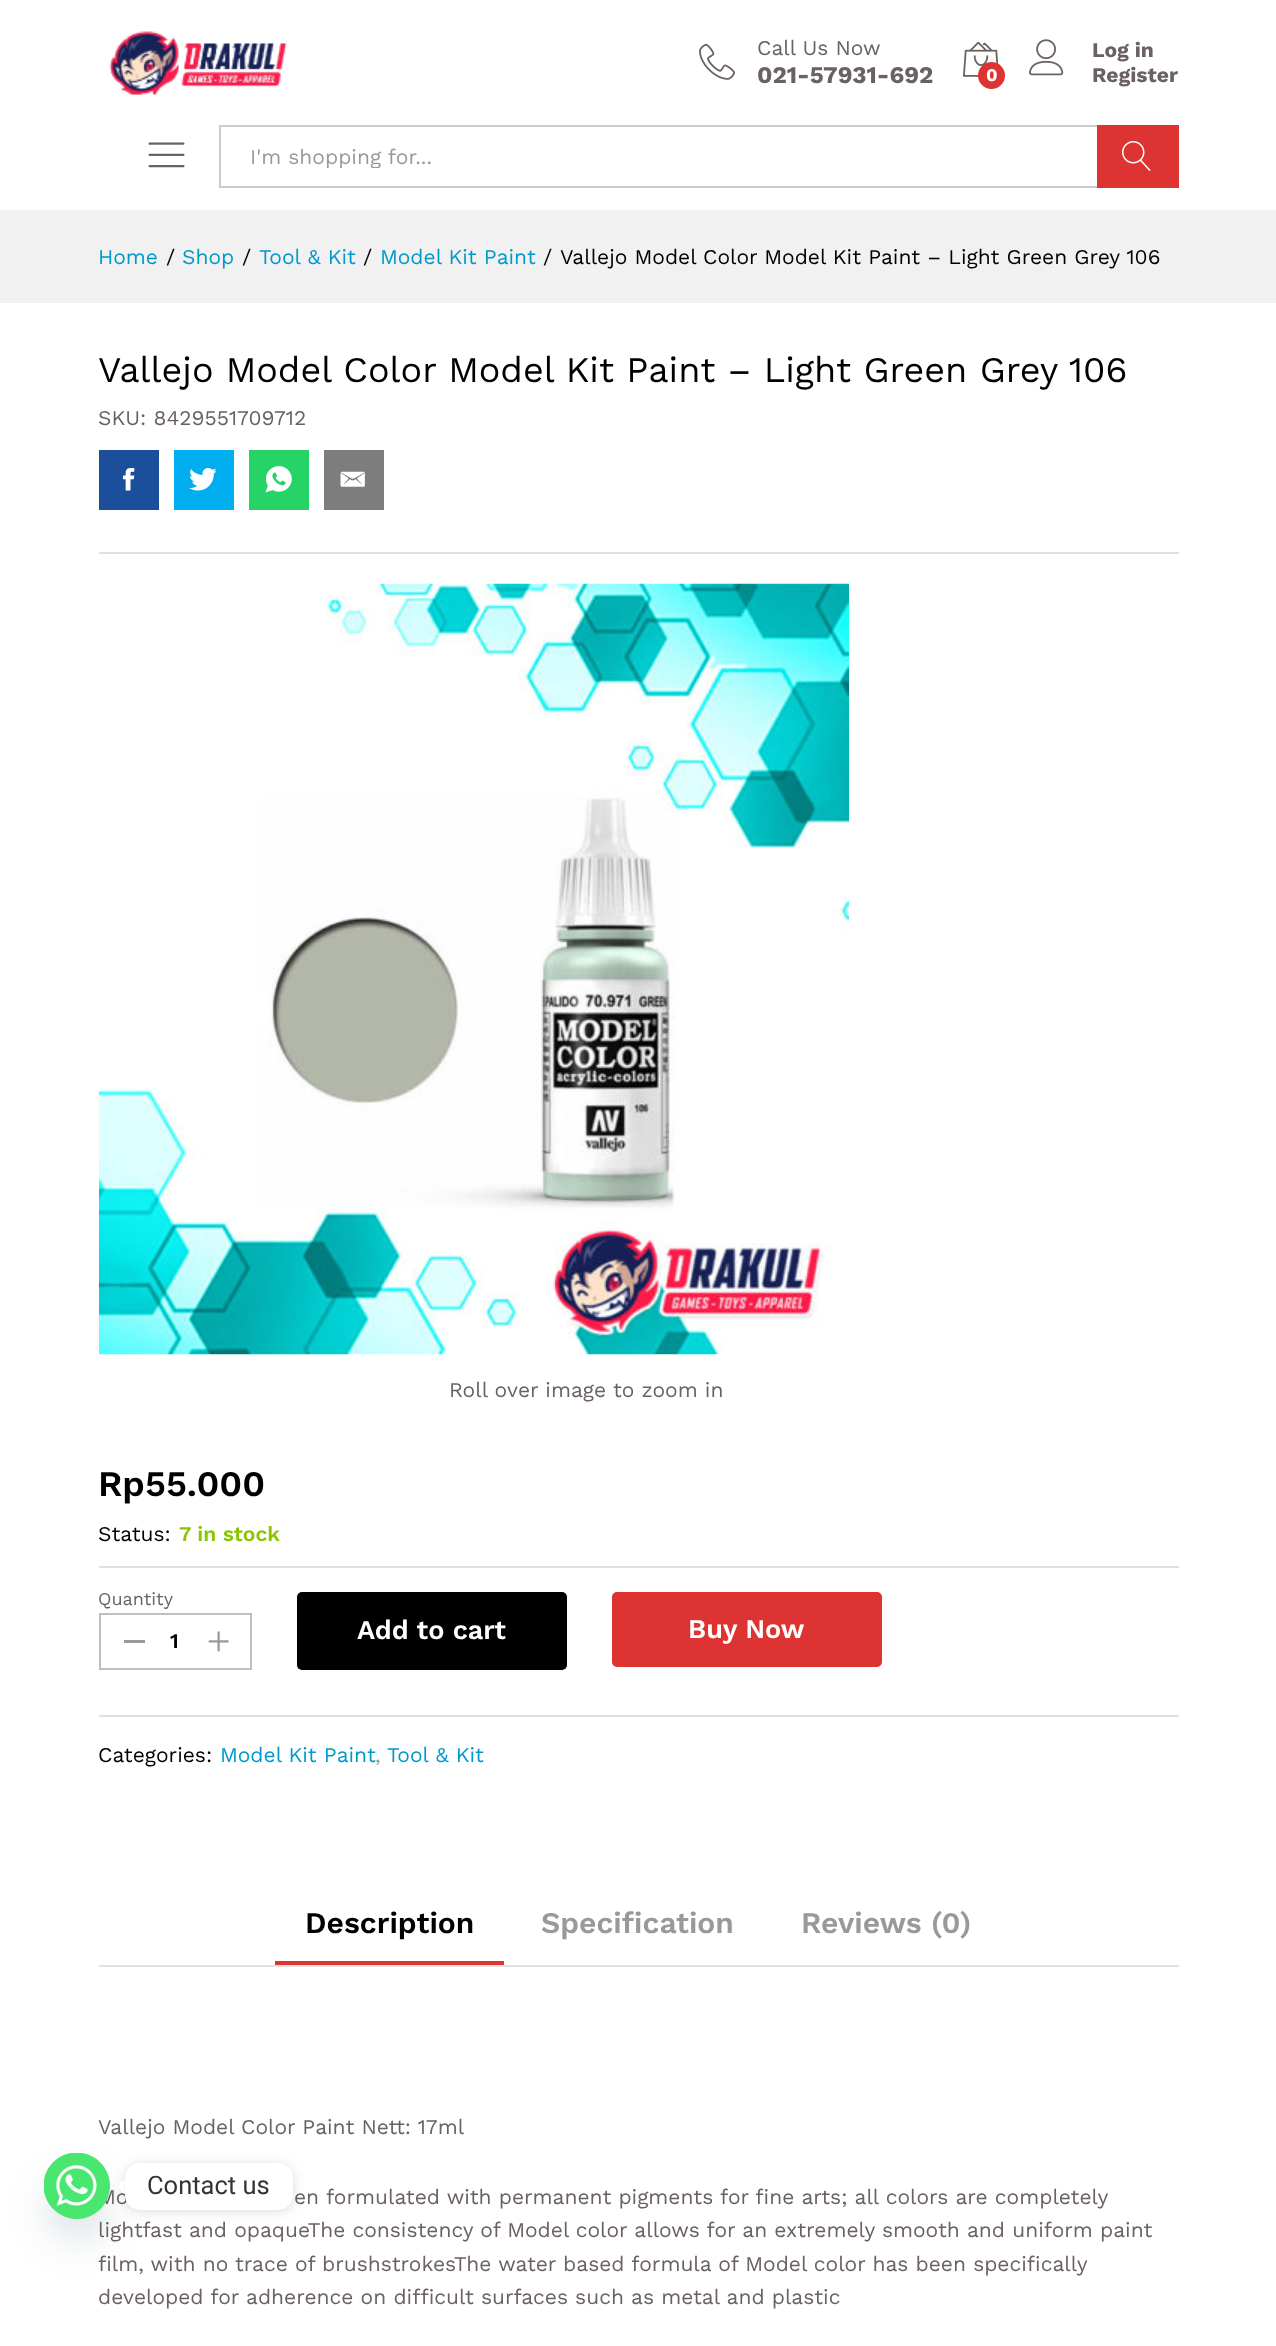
<svg xmlns="http://www.w3.org/2000/svg" width="1276" height="2346">
	<defs>
		<clipPath id="clip1"><rect x="251" y="144" width="816" height="24" /></clipPath>
	</defs>
	<rect width="100%" height="100%" fill="#FFFFFF" />
	<image x="109" y="31" width="178" height="64" href="assets/img1.png" />
	<image x="699" y="43" width="36" height="37" href="assets/img2.png" />
	<text x="757" y="55" font-family="Work Sans" font-size="21" fill="#6A6161">Call Us Now</text>
	<text x="757" y="83" font-family="Work Sans" font-size="24" font-weight="700" fill="#6A6161">021-57931-692</text>
	<image x="963" y="41" width="36" height="36" href="assets/img3.png" />
	<circle cx="991.5" cy="75.5" r="13.5" fill="#DD3333" />
	<text x="986" y="81" font-family="Work Sans" font-size="18" font-weight="700" fill="#FFFFFF">0</text>
	<image x="1029" y="39" width="35" height="37" href="assets/img4.png" />
	<g font-family="Work Sans" font-size="21" font-weight="700" fill="#6A6161">
		<text x="1092" y="57">Log in</text>
		<text x="1092" y="82">Register</text>
	</g>
	<image x="148" y="142" width="37" height="26" href="assets/img5.png" />
	<rect x="219" y="125" width="878" height="2" fill="#CCCCCC" />
	<rect x="219" y="186" width="878" height="2" fill="#CCCCCC" />
	<rect x="219" y="125" width="2" height="63" fill="#CCCCCC" />
	<g clip-path="url(#clip1)">
		<text x="250" y="164" font-family="Work Sans" font-size="21" fill="#999999">I'm shopping for...</text>
	</g>
	<rect x="1097" y="125" width="82" height="63" fill="#DD3333" />
	<image x="1122" y="141" width="29" height="30" href="assets/img6.png" />
	<rect x="0" y="210" width="1276" height="93" fill="#F1F1F1" />
	<text x="98" y="264" font-family="Work Sans" font-size="21" fill="#0099CC">Home</text>
	<text x="166" y="264" font-family="Work Sans" font-size="21" fill="#000000">/</text>
	<text x="182" y="264" font-family="Work Sans" font-size="21" fill="#0099CC">Shop</text>
	<text x="242" y="264" font-family="Work Sans" font-size="21" fill="#000000">/</text>
	<text x="259" y="264" font-family="Work Sans" font-size="21" fill="#0099CC">Tool &amp; Kit</text>
	<text x="363" y="264" font-family="Work Sans" font-size="21" fill="#000000">/</text>
	<text x="380" y="264" font-family="Work Sans" font-size="21" fill="#0099CC">Model Kit Paint</text>
	<g font-family="Work Sans" font-size="21" fill="#000000">
		<text x="543" y="264">/</text>
		<text x="560" y="264">Vallejo Model Color Model Kit Paint – Light Green Grey 106</text>
	</g>
	<rect x="99" y="552" width="1080" height="2" fill="#E1E1E1" />
	<text x="98" y="382" font-family="Work Sans" font-size="36" fill="#000000">Vallejo Model Color Model Kit Paint – Light Green Grey 106</text>
	<text x="98" y="425" font-family="Work Sans" font-size="21" fill="#6A6161">SKU: 8429551709712</text>
	<rect x="99" y="450" width="60" height="60" fill="#1B4E9B" />
	<image x="123" y="468" width="12" height="23" href="assets/img7.png" />
	<rect x="174" y="450" width="60" height="60" fill="#00AEEF" />
	<image x="189" y="468" width="28" height="23" href="assets/img8.png" />
	<rect x="249" y="450" width="60" height="60" fill="#25D366" />
	<image x="265" y="466" width="27" height="27" href="assets/img9.png" />
	<rect x="324" y="450" width="60" height="60" fill="#7D7D7D" />
	<image x="340" y="471" width="25" height="16" href="assets/img10.png" />
	<image x="99" y="583" width="750" height="772" href="assets/img11.png" />
	<text x="449" y="1397" font-family="Work Sans" font-size="21" fill="#6A6161">Roll over image to zoom in</text>
	<text x="98" y="1496" font-family="Work Sans" font-size="36" font-weight="600" fill="#000000">Rp55.000</text>
	<rect x="99" y="1566" width="1080" height="2" fill="#E1E1E1" />
	<text x="98" y="1541" font-family="Work Sans" font-size="21" fill="#000000">Status:</text>
	<text x="179" y="1541" font-family="Work Sans" font-size="21" font-weight="600" fill="#8BC500">7 in stock</text>
	<text x="98" y="1605" font-family="Work Sans" font-size="18" fill="#6A6161">Quantity</text>
	<rect x="100" y="1614" width="151" height="55" fill="none" stroke="#BFBFBF" stroke-width="2" />
	<rect x="124" y="1640" width="21" height="3" fill="#999999" />
	<text x="170" y="1648" font-family="Work Sans" font-size="21" font-weight="600" fill="#000000">1</text>
	<image x="208" y="1631" width="21" height="21" href="assets/img12.png" />
	<rect x="297" y="1592" width="270" height="78" rx="5" fill="#000000" />
	<text x="357" y="1639" font-family="Work Sans" font-size="27" font-weight="600" fill="#FFFFFF">Add to cart</text>
	<rect x="612" y="1592" width="270" height="75" rx="5" fill="#DD3333" />
	<text x="688" y="1638" font-family="Work Sans" font-size="27" font-weight="600" fill="#FFFFFF">Buy Now</text>
	<rect x="99" y="1715" width="1080" height="2" fill="#E1E1E1" />
	<text x="98" y="1762" font-family="Work Sans" font-size="21" fill="#000000">Categories:</text>
	<text x="220" y="1762" font-family="Work Sans" font-size="21" fill="#0099CC">Model Kit Paint</text>
	<text x="375" y="1762" font-family="Work Sans" font-size="21" fill="#999999">,</text>
	<text x="387" y="1762" font-family="Work Sans" font-size="21" fill="#0099CC">Tool &amp; Kit</text>
	<rect x="99" y="1965" width="1080" height="2" fill="#E1E1E1" />
	<text x="305" y="1933" font-family="Work Sans" font-size="30" font-weight="600" fill="#000000">Description</text>
	<g font-family="Work Sans" font-size="30" font-weight="600" fill="#999999">
		<text x="541" y="1933">Specification</text>
		<text x="801" y="1933">Reviews (0)</text>
	</g>
	<rect x="275" y="1961" width="229" height="4" fill="#DD3333" />
	<g font-family="Work Sans" font-size="21" fill="#6A6161">
		<text x="98" y="2134">Vallejo Model Color Paint Nett: 17ml</text>
		<text x="98" y="2204">Mo</text>
		<text x="294" y="2204">en formulated with permanent pigments for fine arts; all colors are completely</text>
		<text x="98" y="2237">lightfast and opaqueThe consistency of Model color allows for an extremely smooth and uniform paint</text>
		<text x="98" y="2271">film, with no trace of brushstrokesThe water based formula of Model color has been specifically</text>
		<text x="98" y="2304">developed for adherence on difficult surfaces such as metal and plastic</text>
	</g>
	<rect x="44" y="2177" width="66" height="66" rx="33" fill="#49687E" fill-opacity="0.16" filter="blur(18px)" />
	<circle cx="77" cy="2186" r="33" fill="#49E670" />
	<image x="44" y="2153" width="66" height="66" href="assets/img13.png" />
	<rect x="125" y="2165" width="168" height="46" rx="15" fill="#000000" fill-opacity="0.15" filter="blur(6px)" />
	<rect x="125" y="2163" width="168" height="47" rx="15" fill="#FFFFFF" />
	<path d="M124.5 2179V2194L117 2186Z" fill="#FFFFFF" />
	<text x="147" y="2194" font-family="Roboto" font-size="25.5" fill="#333333">Contact us</text>
</svg>
